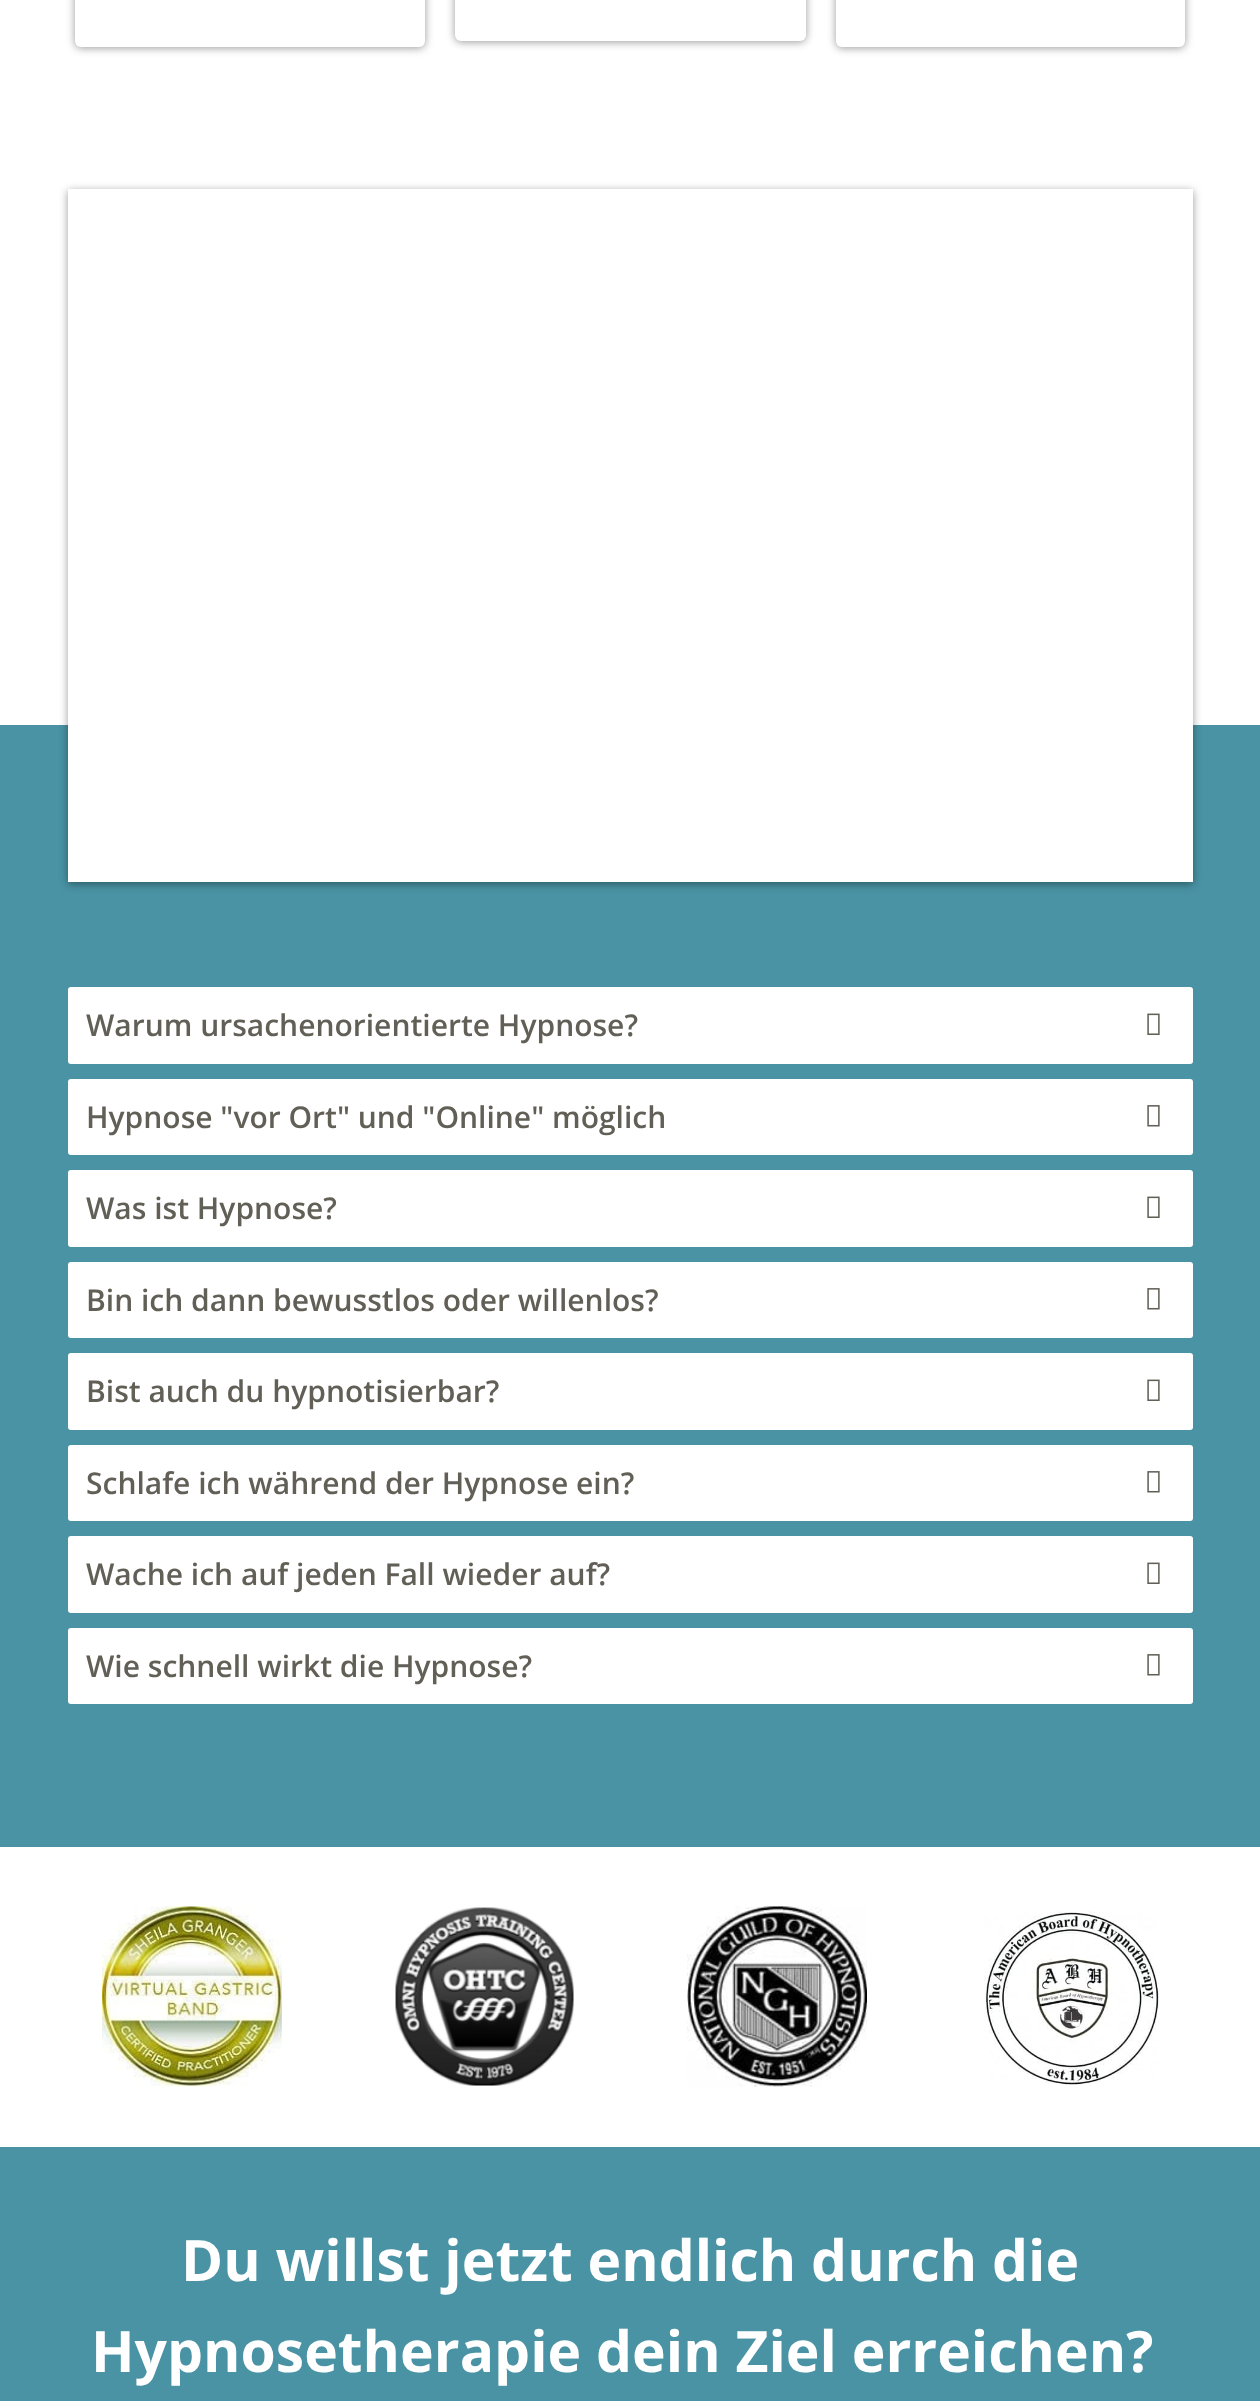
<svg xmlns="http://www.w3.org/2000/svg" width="1260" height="2401">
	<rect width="100%" height="100%" fill="#FFFFFF" />
	<rect x="75" y="-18" width="350" height="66" rx="6" fill="#000000" fill-opacity="0.4" filter="blur(4px)" />
	<rect x="75" y="-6" width="350" height="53" rx="6" fill="#FFFFFF" />
	<rect x="455" y="-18" width="351" height="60" rx="6" fill="#000000" fill-opacity="0.4" filter="blur(4px)" />
	<rect x="455" y="-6" width="351" height="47" rx="6" fill="#FFFFFF" />
	<rect x="836" y="-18" width="349" height="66" rx="6" fill="#000000" fill-opacity="0.4" filter="blur(4px)" />
	<rect x="836" y="-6" width="349" height="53" rx="6" fill="#FFFFFF" />
	<rect x="0" y="725" width="1260" height="1122" fill="#4993A4" />
	<rect x="68" y="191" width="1125" height="693" fill="#000000" fill-opacity="0.4" filter="blur(4px)" />
	<rect x="68" y="189" width="1125" height="693" fill="#FFFFFF" />
	<rect x="68" y="987" width="1125" height="77" rx="3" fill="#FFFFFF" />
	<text x="86" y="1036" font-family="Open Sans" font-size="30" font-weight="600" fill="#625F57">Warum ursachenorientierte Hypnose?</text>
	<image x="1147" y="1013" width="13" height="22" href="assets/img1.png" />
	<rect x="68" y="1079" width="1125" height="76" rx="3" fill="#FFFFFF" />
	<text x="86" y="1128" font-family="Open Sans" font-size="30" font-weight="600" fill="#625F57">Hypnose "vor Ort" und "Online" möglich</text>
	<image x="1147" y="1105" width="13" height="22" href="assets/img2.png" />
	<rect x="68" y="1170" width="1125" height="77" rx="3" fill="#FFFFFF" />
	<text x="86" y="1219" font-family="Open Sans" font-size="30" font-weight="600" fill="#625F57">Was ist Hypnose?</text>
	<image x="1147" y="1196" width="13" height="22" href="assets/img1.png" />
	<rect x="68" y="1262" width="1125" height="76" rx="3" fill="#FFFFFF" />
	<text x="86" y="1311" font-family="Open Sans" font-size="30" font-weight="600" fill="#625F57">Bin ich dann bewusstlos oder willenlos?</text>
	<image x="1147" y="1288" width="13" height="22" href="assets/img2.png" />
	<rect x="68" y="1353" width="1125" height="77" rx="3" fill="#FFFFFF" />
	<text x="86" y="1402" font-family="Open Sans" font-size="30" font-weight="600" fill="#625F57">Bist auch du hypnotisierbar?</text>
	<image x="1147" y="1379" width="13" height="22" href="assets/img1.png" />
	<rect x="68" y="1445" width="1125" height="76" rx="3" fill="#FFFFFF" />
	<text x="86" y="1494" font-family="Open Sans" font-size="30" font-weight="600" fill="#625F57">Schlafe ich während der Hypnose ein?</text>
	<image x="1147" y="1471" width="13" height="22" href="assets/img2.png" />
	<rect x="68" y="1536" width="1125" height="77" rx="3" fill="#FFFFFF" />
	<text x="86" y="1585" font-family="Open Sans" font-size="30" font-weight="600" fill="#625F57">Wache ich auf jeden Fall wieder auf?</text>
	<image x="1147" y="1562" width="13" height="22" href="assets/img1.png" />
	<rect x="68" y="1628" width="1125" height="76" rx="3" fill="#FFFFFF" />
	<text x="86" y="1677" font-family="Open Sans" font-size="30" font-weight="600" fill="#625F57">Wie schnell wirkt die Hypnose?</text>
	<image x="1147" y="1654" width="13" height="22" href="assets/img2.png" />
	<image x="102" y="1906" width="180" height="181" href="assets/img3.png" />
	<image x="395" y="1907" width="179" height="179" href="assets/img4.png" />
	<image x="687" y="1906" width="180" height="181" href="assets/img5.png" />
	<image x="984" y="1911" width="175" height="174" href="assets/img6.png" />
	<rect x="0" y="2147" width="1260" height="254" fill="#4993A4" />
	<g font-family="Open Sans" font-size="57" font-weight="700" fill="#FFFFFF">
		<text x="181" y="2281">Du willst jetzt endlich durch die</text>
		<text x="91" y="2372">Hypnosetherapie dein Ziel erreichen?</text>
	</g>
</svg>
